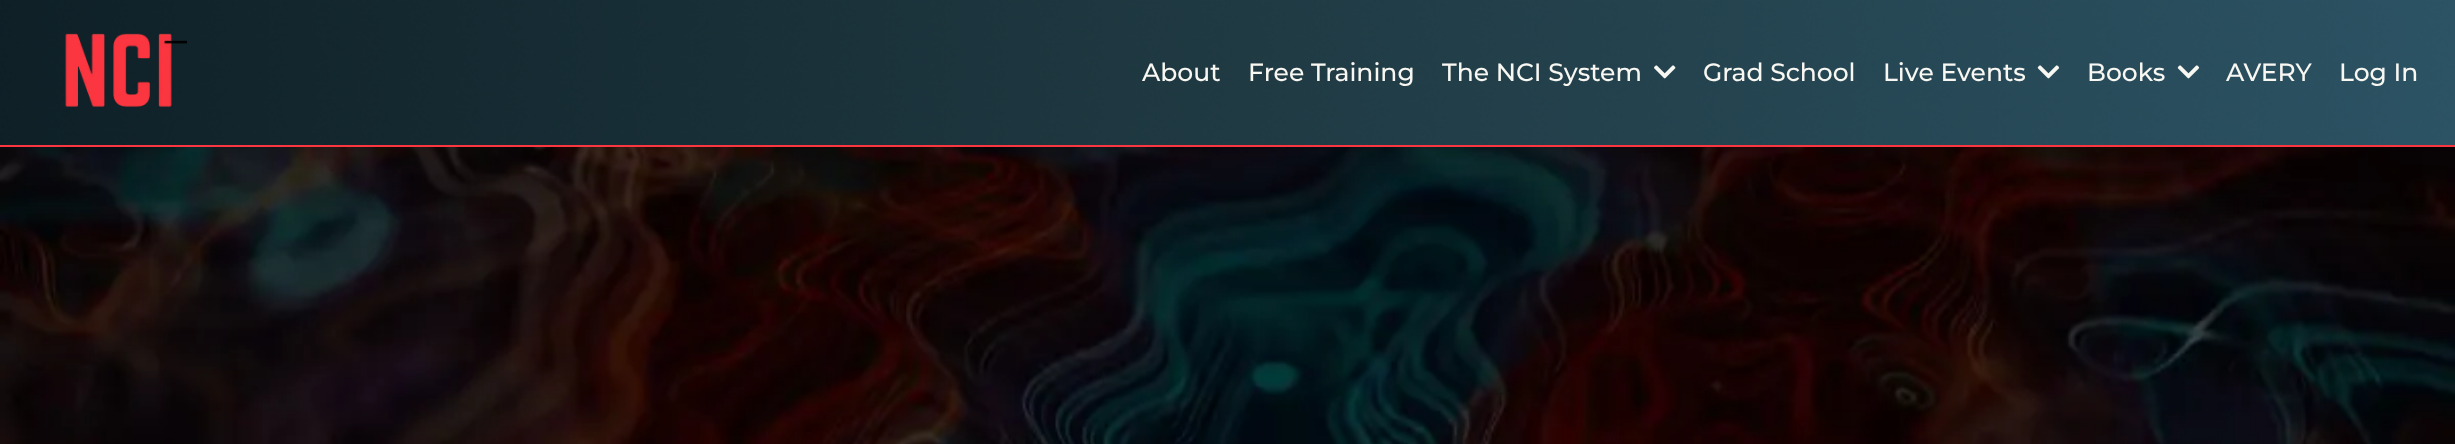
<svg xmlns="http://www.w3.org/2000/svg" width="2455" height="444">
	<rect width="100%" height="100%" fill="#FB3640" />
	<image x="0" y="0" width="2455" height="145" href="assets/img1.png" />
	<image x="65" y="33" width="122" height="74" href="assets/img2.png" />
	<g font-family="Montserrat" font-size="25" font-weight="500" fill="#F8F7F2">
		<text x="1142" y="81">About</text>
		<text x="1248" y="81">Free Training</text>
		<text x="1442" y="81">The NCI System</text>
	</g>
	<image x="1654" y="65" width="22" height="14" href="assets/img3.png" />
	<g font-family="Montserrat" font-size="25" font-weight="500" fill="#F8F7F2">
		<text x="1703" y="81">Grad School</text>
		<text x="1883" y="81">Live Events</text>
	</g>
	<image x="2037" y="65" width="23" height="14" href="assets/img4.png" />
	<text x="2087" y="81" font-family="Montserrat" font-size="25" font-weight="500" fill="#F8F7F2">Books</text>
	<image x="2177" y="65" width="23" height="14" href="assets/img5.png" />
	<g font-family="Montserrat" font-size="25" font-weight="500" fill="#F8F7F2">
		<text x="2226" y="81">AVERY</text>
		<text x="2339" y="81">Log In</text>
	</g>
	<image x="0" y="147" width="2455" height="297" href="assets/img6.png" />
</svg>
